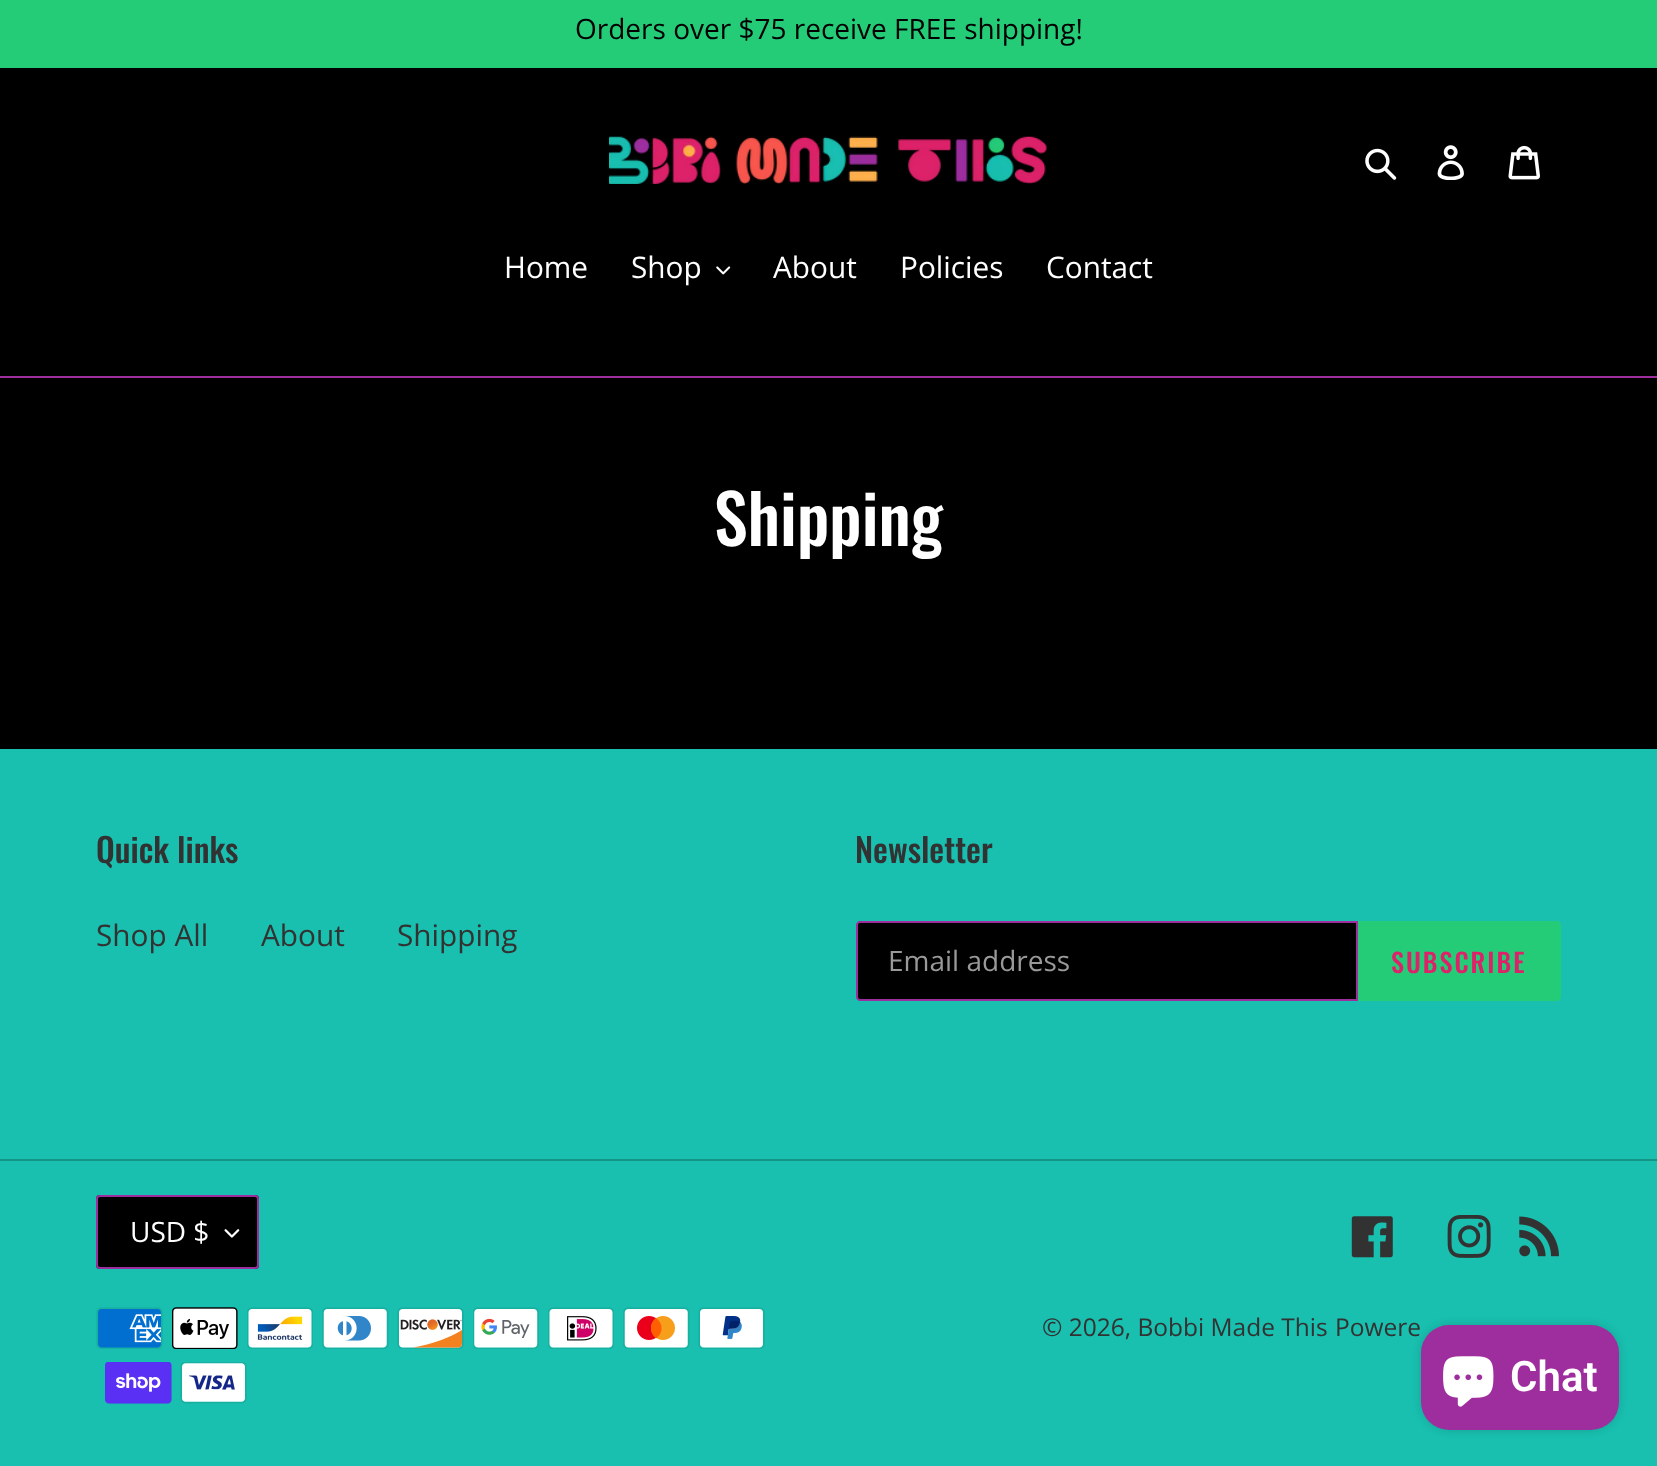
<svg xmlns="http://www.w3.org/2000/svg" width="1657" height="1466">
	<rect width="100%" height="100%" fill="#000000" />
	<rect x="0" y="0" width="1657" height="68" fill="#25CC78" />
	<text x="575" y="39" font-family="Open Sans" font-size="28" fill="#000000">Orders over $75 receive FREE shipping!</text>
	<image x="609" y="136" width="438" height="48" href="assets/img1.png" />
	<image x="1365" y="148" width="32" height="32" href="assets/img2.png" />
	<image x="1437" y="145" width="27" height="35" href="assets/img3.png" />
	<image x="1508" y="145" width="32" height="35" href="assets/img4.png" />
	<rect x="0" y="376" width="1657" height="2" fill="#9E2E9E" />
	<g font-family="Open Sans" font-size="29.75" fill="#FFFFFF">
		<text x="504" y="278">Home</text>
		<text x="631" y="278">Shop</text>
	</g>
	<image x="716" y="266" width="15" height="9" href="assets/img5.png" />
	<g font-family="Open Sans" font-size="29.75" fill="#FFFFFF">
		<text x="773" y="278">About</text>
		<text x="900" y="278">Policies</text>
		<text x="1046" y="278">Contact</text>
	</g>
	<text x="714" y="546" font-family="Oswald" font-size="68" font-weight="500" fill="#FFFFFF">Shipping</text>
	<rect x="0" y="749" width="1657" height="717" fill="#19BFAF" />
	<text x="96" y="863" font-family="Oswald" font-size="33.25" font-weight="500" fill="#333232">Quick links</text>
	<g font-family="Open Sans" font-size="29.75" fill="#333232">
		<text x="96" y="946">Shop All</text>
		<text x="261" y="946">About</text>
		<text x="397" y="946">Shipping</text>
	</g>
	<text x="855" y="863" font-family="Oswald" font-size="33.25" font-weight="500" fill="#333232">Newsletter</text>
	<path d="M860 922H1357V1000H860C858.5 1000 857 998.5 857 997V925C857 923.5 858.5 922 860 922Z" fill="#000000" stroke="#9E2E9E" stroke-width="2" />
	<text x="888" y="971" font-family="Open Sans" font-size="28" fill="#999999">Email address</text>
	<path d="M1358 921H1557C1559 921 1561 923 1561 925V997C1561 999 1559 1001 1557 1001H1358Z" fill="#25CC78" />
	<text x="1391" y="973" font-family="Oswald" font-size="26.25" font-weight="500" letter-spacing="2" fill="#DD226A">SUBSCRIBE</text>
	<rect x="0" y="1159" width="1657" height="2" fill="#139286" />
	<rect x="96" y="1195" width="163" height="74" rx="4" fill="#000000" />
	<image x="224" y="1229" width="16" height="9" href="assets/img6.png" />
	<rect x="97" y="1196" width="161" height="72" rx="3" fill="none" stroke="#9E2E9E" stroke-width="2" />
	<text x="130" y="1242" font-family="Open Sans" font-size="28" fill="#FFFFFF">USD $</text>
	<image x="1351" y="1216" width="42" height="42" href="assets/img7.png" />
	<image x="1447" y="1215" width="44" height="43" href="assets/img8.png" />
	<image x="1519" y="1216" width="40" height="41" href="assets/img9.png" />
	<image x="96" y="1307" width="67" height="42" href="assets/img10.png" />
	<image x="172" y="1307" width="66" height="42" href="assets/img11.png" />
	<image x="247" y="1307" width="66" height="42" href="assets/img12.png" />
	<image x="322" y="1307" width="67" height="42" href="assets/img13.png" />
	<image x="397" y="1307" width="67" height="42" href="assets/img14.png" />
	<image x="473" y="1307" width="66" height="42" href="assets/img15.png" />
	<image x="548" y="1307" width="66" height="42" href="assets/img16.png" />
	<image x="623" y="1307" width="67" height="42" href="assets/img17.png" />
	<image x="698" y="1307" width="67" height="42" href="assets/img18.png" />
	<image x="105" y="1362" width="67" height="42" href="assets/img19.png" />
	<image x="180" y="1362" width="67" height="42" href="assets/img20.png" />
	<g font-family="Open Sans" font-size="24.5" fill="#333232">
		<text x="1042" y="1336">© 2026, Bobbi Made This</text>
		<text x="1335" y="1336">Powere</text>
	</g>
	<rect x="1421" y="1325" width="198" height="105" rx="28" fill="#000000" fill-opacity="0.15" filter="blur(4.5px)" />
	<rect x="1421" y="1325" width="198" height="105" rx="28" fill="#9E2E9E" />
	<image x="1443" y="1356" width="51" height="51" href="assets/img21.png" />
	<text x="1510" y="1391" font-family="Roboto" font-size="42" font-weight="600" fill="#FFFFFF">Chat</text>
</svg>
